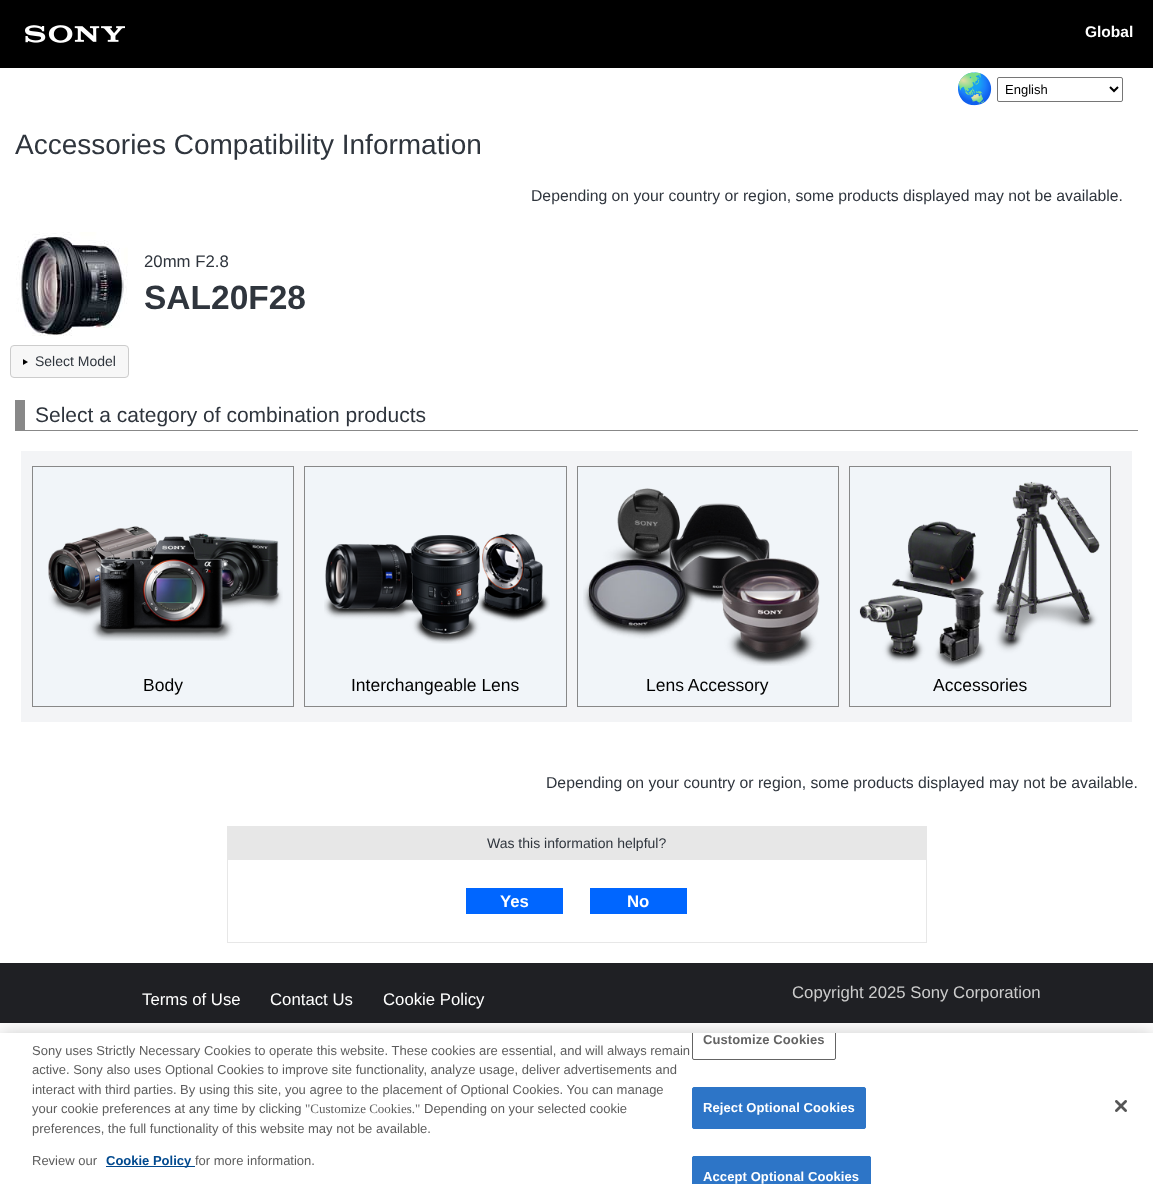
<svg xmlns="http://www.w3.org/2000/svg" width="1153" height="1184">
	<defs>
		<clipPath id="clip1"><rect x="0" y="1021" width="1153" height="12" /></clipPath>
		<clipPath id="clip2"><rect x="0" y="1033" width="1153" height="151" /></clipPath>
	</defs>
	<rect width="100%" height="100%" fill="#FFFFFF" />
	<rect x="0" y="0" width="1153" height="68" fill="#000000" />
	<image x="25" y="25" width="100" height="18" href="assets/img1.png" />
	<text x="1085" y="37" font-family="Liberation Sans" font-size="15.5" font-weight="700" fill="#FFFFFF">Global</text>
	<text x="956" y="99" font-family="Noto Color Emoji" font-size="30" fill="#2F353D">🌏</text>
	<rect x="997.5" y="77.5" width="125" height="24" rx="1.5" fill="none" stroke="#767676" />
	<path d="M1110 87L1114 91L1118 87" fill="none" stroke="#000000" stroke-width="2" />
	<text x="1005" y="94" font-family="Liberation Sans" font-size="13" fill="#000000">English</text>
	<text x="15" y="154" font-family="Liberation Sans" font-size="28" fill="#2F353D">Accessories Compatibility Information</text>
	<text x="531" y="201" font-family="Liberation Sans" font-size="15.75" fill="#2F353D">Depending on your country or region, some products displayed may not be available.</text>
	<image x="16" y="232" width="112" height="104" href="assets/img2.png" />
	<text x="144" y="267" font-family="Liberation Sans" font-size="16.75" fill="#2F353D">20mm F2.8</text>
	<text x="144" y="309" font-family="Liberation Sans" font-size="33.5" font-weight="700" fill="#2F353D">SAL20F28</text>
	<rect x="10.5" y="345.5" width="118" height="32" rx="3.5" fill="#F7F7F7" stroke="#CCCCCC" />
	<image x="23" y="359" width="5" height="6" href="assets/img3.png" />
	<text x="35" y="366" font-family="Liberation Sans" font-size="14" fill="#2F353D">Select Model</text>
	<rect x="25" y="430" width="1113" height="1" fill="#888888" />
	<rect x="15" y="400" width="10" height="31" fill="#888888" />
	<text x="35" y="422" font-family="Liberation Sans" font-size="21" fill="#2F353D">Select a category of combination products</text>
	<rect x="21" y="451" width="1111" height="271" fill="#F3F4F6" />
	<rect x="32.5" y="466.5" width="261" height="240" fill="none" stroke="#888888" />
	<rect x="33" y="467" width="260" height="239" fill="#F1F5F9" />
	<image x="48" y="526" width="235" height="115" href="assets/img4.png" />
	<text x="143" y="691" font-family="Liberation Sans" font-size="17.5" fill="#000000">Body</text>
	<rect x="304.5" y="466.5" width="262" height="240" fill="none" stroke="#888888" />
	<rect x="305" y="467" width="261" height="239" fill="#F1F5F9" />
	<image x="324" y="533" width="226" height="111" href="assets/img5.png" />
	<text x="351" y="691" font-family="Liberation Sans" font-size="17.5" fill="#000000">Interchangeable Lens</text>
	<rect x="577.5" y="466.5" width="261" height="240" fill="none" stroke="#888888" />
	<rect x="578" y="467" width="260" height="239" fill="#F1F5F9" />
	<image x="583" y="488" width="237" height="178" href="assets/img6.png" />
	<text x="646" y="691" font-family="Liberation Sans" font-size="17.5" fill="#000000">Lens Accessory</text>
	<rect x="849.5" y="466.5" width="261" height="240" fill="none" stroke="#888888" />
	<rect x="850" y="467" width="260" height="239" fill="#F1F5F9" />
	<image x="859" y="481" width="241" height="188" href="assets/img7.png" />
	<text x="933" y="691" font-family="Liberation Sans" font-size="17.5" fill="#000000">Accessories</text>
	<text x="546" y="788" font-family="Liberation Sans" font-size="15.75" fill="#2F353D">Depending on your country or region, some products displayed may not be available.</text>
	<rect x="227.5" y="826.5" width="699" height="116" fill="none" stroke="#E7E7E7" />
	<rect x="228" y="827" width="698" height="33" fill="#E7E7E7" />
	<text x="487" y="848" font-family="Liberation Sans" font-size="14" fill="#2F353D">Was this information helpful?</text>
	<rect x="466" y="888" width="97" height="26" fill="#0066FF" />
	<text x="500" y="907" font-family="Liberation Sans" font-size="16.75" font-weight="700" fill="#FFFFFF">Yes</text>
	<rect x="590" y="888" width="97" height="26" fill="#0066FF" />
	<text x="627" y="907" font-family="Liberation Sans" font-size="16.75" font-weight="700" fill="#FFFFFF">No</text>
	<rect x="0" y="963" width="1153" height="60" fill="#1F2024" />
	<g font-family="Liberation Sans" font-size="16.75" fill="#FFFFFF">
		<text x="142" y="1005">Terms of Use</text>
		<text x="270" y="1005">Contact Us</text>
		<text x="383" y="1005">Cookie Policy</text>
	</g>
	<text x="792" y="998" font-family="Liberation Sans" font-size="16.75" fill="#CCCCCC">Copyright 2025 Sony Corporation</text>
	<g clip-path="url(#clip1)">
		<rect x="0" y="1033" width="1153" height="151" fill="#000000" fill-opacity="0.2" filter="blur(9px)" />
	</g>
	<g font-family="Liberation Sans" font-size="13" fill="#5D5D5D">
		<text x="32" y="1055">Sony uses Strictly Necessary Cookies to operate this website. These cookies are essential, and will always remain</text>
		<text x="32" y="1074">active. Sony also uses Optional Cookies to improve site functionality, analyze usage, deliver advertisements and</text>
		<text x="32" y="1094">interact with third parties. By using this site, you agree to the placement of Optional Cookies. You can manage</text>
		<text x="32" y="1113">your cookie preferences at any time by clicking</text>
	</g>
	<text x="305" y="1113" font-family="Liberation Serif" font-size="13" fill="#5D5D5D">"Customize Cookies."</text>
	<g font-family="Liberation Sans" font-size="13" fill="#5D5D5D">
		<text x="424" y="1113">Depending on your selected cookie</text>
		<text x="32" y="1133">preferences, the full functionality of this website may not be available.</text>
		<text x="32" y="1165">Review our</text>
	</g>
	<rect x="106" y="1166" width="89" height="1" fill="#01498E" />
	<text x="106" y="1165" font-family="Liberation Sans" font-size="13" font-weight="700" fill="#01498E">Cookie Policy</text>
	<text x="195" y="1165" font-family="Liberation Sans" font-size="13" fill="#5D5D5D">for more information.</text>
	<g clip-path="url(#clip2)">
		<rect x="692.5" y="1018.5" width="143" height="41" rx="1.5" fill="none" stroke="#646464" />
	</g>
	<text x="703" y="1044" font-family="Liberation Sans" font-size="13" font-weight="700" letter-spacing="0.1" fill="#646464">Customize Cookies</text>
	<rect x="692.5" y="1087.5" width="173" height="41" rx="1.5" fill="#2D75C7" stroke="#2D75C7" />
	<text x="703" y="1112" font-family="Liberation Sans" font-size="13" font-weight="700" letter-spacing="0.1" fill="#FFFFFF">Reject Optional Cookies</text>
	<path d="M694 1156H869C870 1156 871 1157 871 1158V1184H692V1158C692 1157 693 1156 694 1156Z" fill="#2D75C7" />
	<rect x="692.5" y="1156.5" width="178" height="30" rx="1.5" fill="none" stroke="#2D75C7" />
	<text x="703" y="1181" font-family="Liberation Sans" font-size="13" font-weight="700" letter-spacing="0.1" fill="#FFFFFF">Accept Optional Cookies</text>
	<image x="1115" y="1100" width="12" height="12" href="assets/img8.png" />
</svg>
